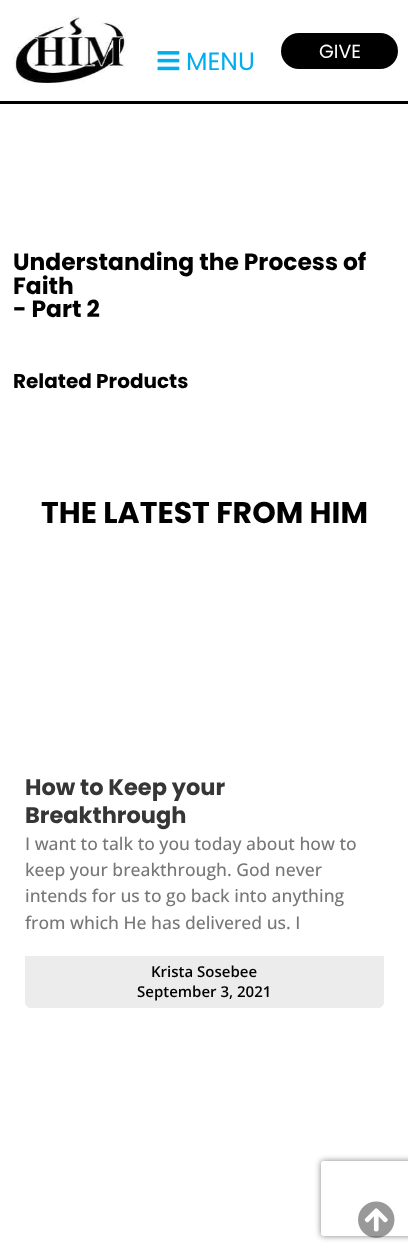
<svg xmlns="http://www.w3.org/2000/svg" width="408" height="1253">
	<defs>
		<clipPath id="clip1"><path d="M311 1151H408V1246H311ZM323.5 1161H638.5C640 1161 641 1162 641 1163.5V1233.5C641 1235 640 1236 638.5 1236H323.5C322 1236 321 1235 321 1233.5V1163.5C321 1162 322 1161 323.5 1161Z" clip-rule="evenodd" /></clipPath>
	</defs>
	<rect width="100%" height="100%" fill="#FFFFFF" />
	<rect x="0" y="101" width="408" height="3" fill="#000000" />
	<image x="12" y="16" width="114" height="67" href="assets/img1.png" />
	<image x="157" y="51" width="23" height="20" href="assets/img2.png" />
	<text x="186" y="70" font-family="Poppins" font-size="25" fill="#00AEEF">MENU</text>
	<rect x="281" y="33" width="117" height="36" rx="18" fill="#000000" />
	<text x="319" y="58" font-family="Poppins" font-size="19" fill="#FFFFFF">GIVE</text>
	<g font-family="Poppins" font-size="23.4" font-weight="700" fill="#000000">
		<text x="13" y="270">Understanding the Process of</text>
		<text x="13" y="294">Faith</text>
		<text x="13" y="317">- Part 2</text>
	</g>
	<text x="13" y="388" font-family="Poppins" font-size="20" font-weight="700" fill="#000000">Related Products</text>
	<text x="41" y="523" font-family="Poppins" font-size="30" font-weight="700" fill="#000000">THE LATEST FROM HIM</text>
	<g font-family="Poppins" font-size="22.5" font-weight="700" fill="#363636">
		<text x="25" y="795">How to Keep your</text>
		<text x="25" y="823">Breakthrough</text>
	</g>
	<g font-family="Open Sans" font-size="17.5" font-weight="500" fill="#777777">
		<text x="25" y="850">I want to talk to you today about how to</text>
		<text x="25" y="876">keep your breakthrough. God never</text>
		<text x="25" y="902">intends for us to go back into anything</text>
		<text x="25" y="929">from which He has delivered us. I</text>
	</g>
	<path d="M25 956H384V1002C384 1005.5 381.5 1008 378 1008H31C27.5 1008 25 1005.5 25 1002Z" fill="#ECECEC" />
	<g font-family="Open Sans" font-size="15" font-weight="600" fill="#000000">
		<text x="151" y="977">Krista Sosebee</text>
		<text x="137" y="997">September 3, 2021</text>
	</g>
	<g clip-path="url(#clip1)">
		<rect x="321" y="1161" width="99" height="75" rx="2.5" fill="#808080" filter="blur(3px)" />
	</g>
	<image x="358" y="1201" width="37" height="37" href="assets/img3.png" />
</svg>
